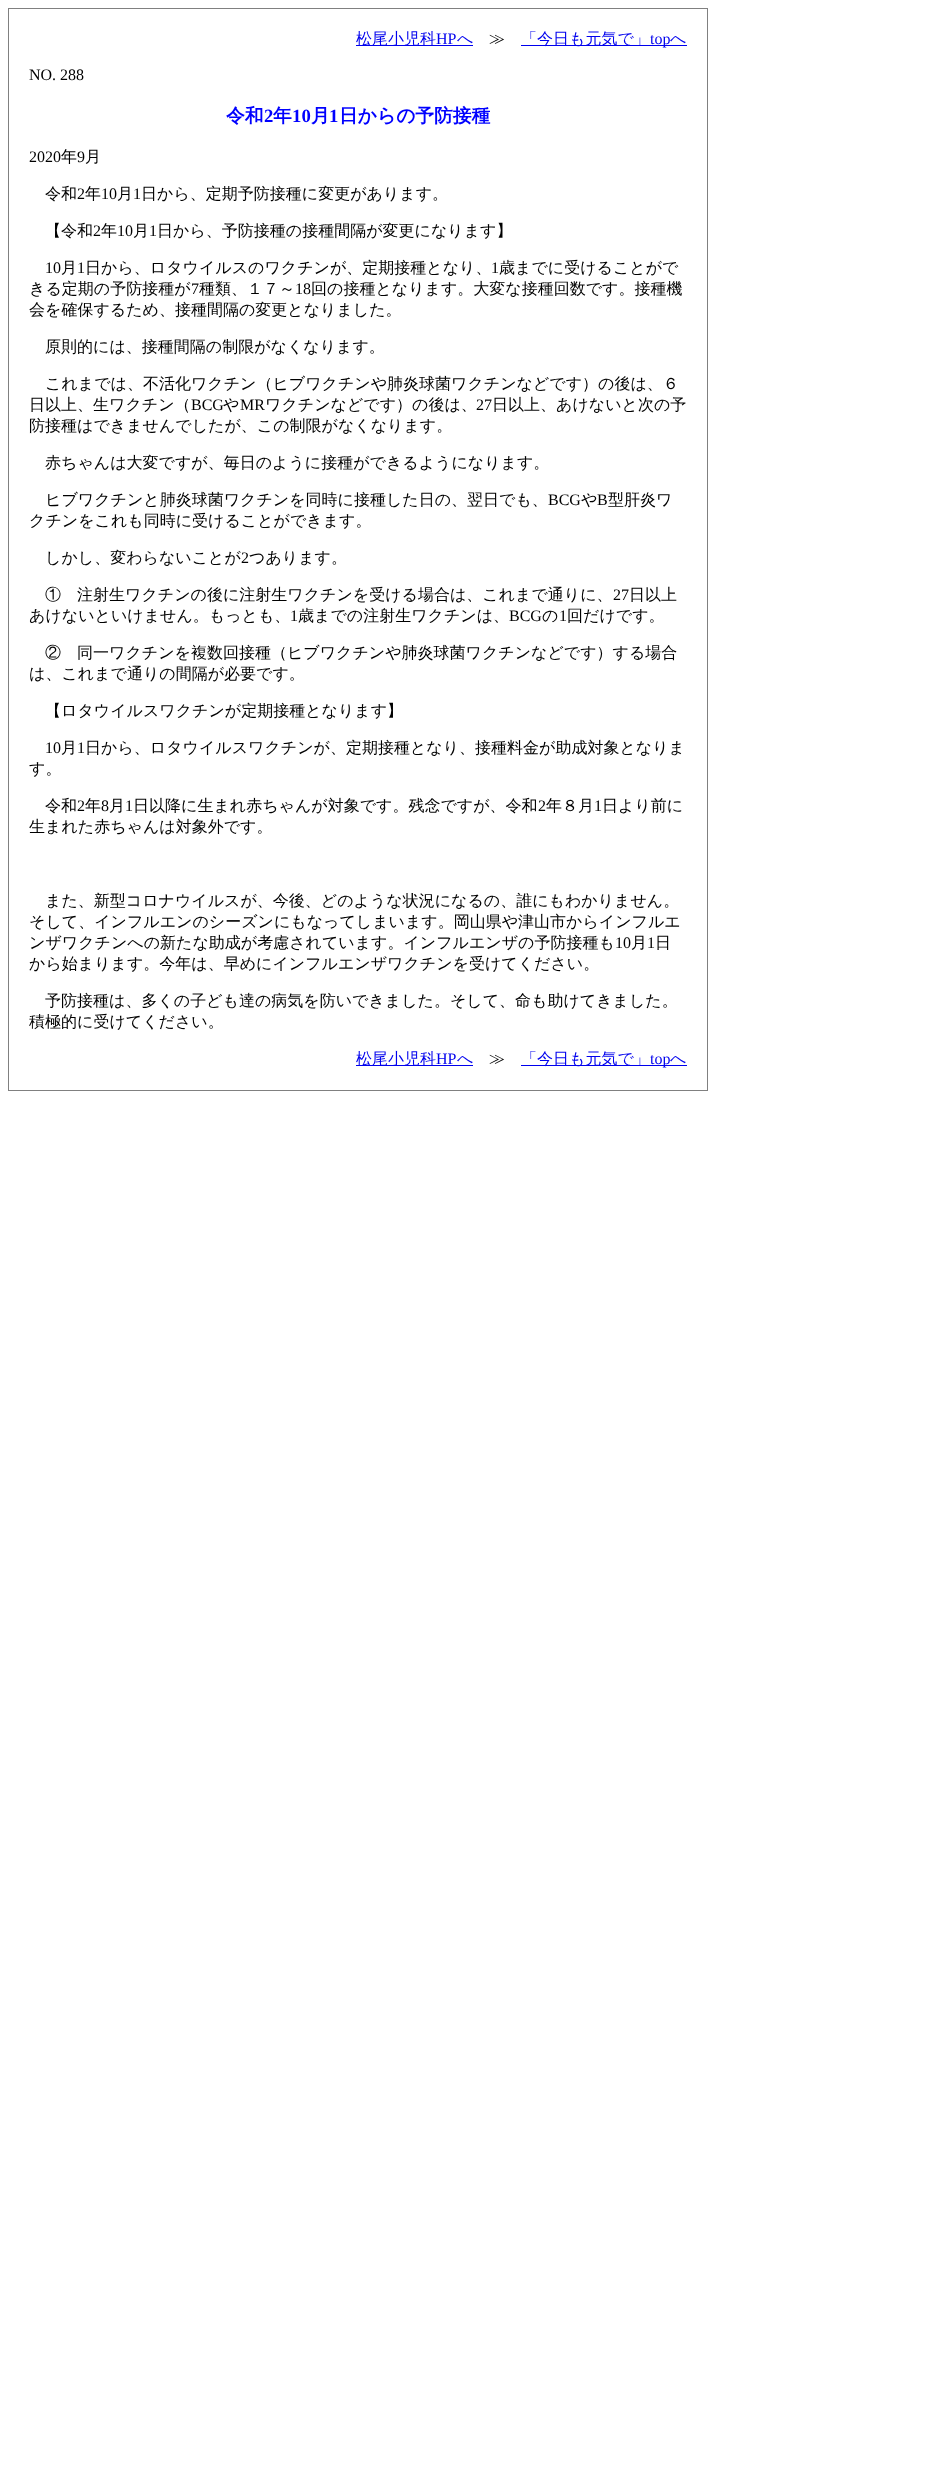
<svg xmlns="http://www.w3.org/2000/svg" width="949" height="2472">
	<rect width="100%" height="100%" fill="#FFFFFF" />
	<rect x="8" y="8" width="700" height="1" fill="#808080" />
	<rect x="707" y="8" width="1" height="1083" fill="#808080" />
	<rect x="8" y="1090" width="700" height="1" fill="#808080" />
	<rect x="8" y="8" width="1" height="1083" fill="#808080" />
	<rect x="356" y="45" width="117" height="1" fill="#0000EE" />
	<text x="356" y="44" font-family="WenQuanYi Zen Hei" font-size="16" font-weight="500" fill="#0000EE">松尾小児科</text>
	<text x="436" y="44" font-family="Liberation Serif" font-size="16" fill="#0000EE">HP</text>
	<text x="457" y="44" font-family="WenQuanYi Zen Hei" font-size="16" font-weight="500" fill="#0000EE">へ</text>
	<text x="489" y="44" font-family="WenQuanYi Zen Hei" font-size="16" font-weight="500" fill="#000000">≫</text>
	<rect x="521" y="45" width="166" height="1" fill="#0000EE" />
	<text x="521" y="44" font-family="WenQuanYi Zen Hei" font-size="16" font-weight="500" fill="#0000EE">「今日も元気で」</text>
	<text x="650" y="44" font-family="Liberation Serif" font-size="16" fill="#0000EE">top</text>
	<text x="670" y="44" font-family="WenQuanYi Zen Hei" font-size="16" font-weight="500" fill="#0000EE">へ</text>
	<text x="29" y="80" font-family="Liberation Serif" font-size="16" fill="#000000">NO. 288</text>
	<text x="226" y="122" font-family="WenQuanYi Zen Hei" font-size="18.75" font-weight="700" fill="#0000FF">令和</text>
	<text x="264" y="122" font-family="Liberation Serif" font-size="18.75" font-weight="700" fill="#0000FF">2</text>
	<text x="273" y="122" font-family="WenQuanYi Zen Hei" font-size="18.75" font-weight="700" fill="#0000FF">年</text>
	<text x="292" y="122" font-family="Liberation Serif" font-size="18.75" font-weight="700" fill="#0000FF">10</text>
	<text x="311" y="122" font-family="WenQuanYi Zen Hei" font-size="18.75" font-weight="700" fill="#0000FF">月</text>
	<text x="329" y="122" font-family="Liberation Serif" font-size="18.75" font-weight="700" fill="#0000FF">1</text>
	<text x="339" y="122" font-family="WenQuanYi Zen Hei" font-size="18.75" font-weight="700" fill="#0000FF">日からの予防接種</text>
	<text x="29" y="162" font-family="Liberation Serif" font-size="16" fill="#000000">2020</text>
	<text x="61" y="162" font-family="WenQuanYi Zen Hei" font-size="16" font-weight="500" fill="#000000">年</text>
	<text x="77" y="162" font-family="Liberation Serif" font-size="16" fill="#000000">9</text>
	<g font-family="WenQuanYi Zen Hei" font-size="16" font-weight="500" fill="#000000">
		<text x="85" y="162">月</text>
		<text x="45" y="199">令和</text>
	</g>
	<text x="77" y="199" font-family="Liberation Serif" font-size="16" fill="#000000">2</text>
	<text x="85" y="199" font-family="WenQuanYi Zen Hei" font-size="16" font-weight="500" fill="#000000">年</text>
	<text x="101" y="199" font-family="Liberation Serif" font-size="16" fill="#000000">10</text>
	<text x="117" y="199" font-family="WenQuanYi Zen Hei" font-size="16" font-weight="500" fill="#000000">月</text>
	<text x="133" y="199" font-family="Liberation Serif" font-size="16" fill="#000000">1</text>
	<g font-family="WenQuanYi Zen Hei" font-size="16" font-weight="500" fill="#000000">
		<text x="141" y="199">日から、定期予防接種に変更があります。</text>
		<text x="45" y="236">【令和</text>
	</g>
	<text x="93" y="236" font-family="Liberation Serif" font-size="16" fill="#000000">2</text>
	<text x="101" y="236" font-family="WenQuanYi Zen Hei" font-size="16" font-weight="500" fill="#000000">年</text>
	<text x="117" y="236" font-family="Liberation Serif" font-size="16" fill="#000000">10</text>
	<text x="133" y="236" font-family="WenQuanYi Zen Hei" font-size="16" font-weight="500" fill="#000000">月</text>
	<text x="149" y="236" font-family="Liberation Serif" font-size="16" fill="#000000">1</text>
	<text x="157" y="236" font-family="WenQuanYi Zen Hei" font-size="16" font-weight="500" fill="#000000">日から、予防接種の接種間隔が変更になります】</text>
	<text x="45" y="273" font-family="Liberation Serif" font-size="16" fill="#000000">10</text>
	<text x="61" y="273" font-family="WenQuanYi Zen Hei" font-size="16" font-weight="500" fill="#000000">月</text>
	<text x="77" y="273" font-family="Liberation Serif" font-size="16" fill="#000000">1</text>
	<text x="85" y="273" font-family="WenQuanYi Zen Hei" font-size="16" font-weight="500" fill="#000000">日から、ロタウイルスのワクチンが、定期接種となり、</text>
	<text x="491" y="273" font-family="Liberation Serif" font-size="16" fill="#000000">1</text>
	<g font-family="WenQuanYi Zen Hei" font-size="16" font-weight="500" fill="#000000">
		<text x="499" y="273">歳までに受けることがで</text>
		<text x="29" y="294">きる定期の予防接種が</text>
	</g>
	<text x="191" y="294" font-family="Liberation Serif" font-size="16" fill="#000000">7</text>
	<text x="199" y="294" font-family="WenQuanYi Zen Hei" font-size="16" font-weight="500" fill="#000000">種類、１７～</text>
	<text x="295" y="294" font-family="Liberation Serif" font-size="16" fill="#000000">18</text>
	<g font-family="WenQuanYi Zen Hei" font-size="16" font-weight="500" fill="#000000">
		<text x="311" y="294">回の接種となります。大変な接種回数です。接種機</text>
		<text x="29" y="315">会を確保するため、接種間隔の変更となりました。</text>
		<text x="45" y="352">原則的には、接種間隔の制限がなくなります。</text>
		<text x="45" y="389">これまでは、不活化ワクチン（ヒブワクチンや肺炎球菌ワクチンなどです）の後は、６</text>
		<text x="29" y="410">日以上、生ワクチン（</text>
	</g>
	<text x="191" y="410" font-family="Liberation Serif" font-size="16" fill="#000000">BCG</text>
	<text x="223" y="410" font-family="WenQuanYi Zen Hei" font-size="16" font-weight="500" fill="#000000">や</text>
	<text x="240" y="410" font-family="Liberation Serif" font-size="16" fill="#000000">MR</text>
	<text x="265" y="410" font-family="WenQuanYi Zen Hei" font-size="16" font-weight="500" fill="#000000">ワクチンなどです）の後は、</text>
	<text x="476" y="410" font-family="Liberation Serif" font-size="16" fill="#000000">27</text>
	<g font-family="WenQuanYi Zen Hei" font-size="16" font-weight="500" fill="#000000">
		<text x="492" y="410">日以上、あけないと次の予</text>
		<text x="29" y="431">防接種はできませんでしたが、この制限がなくなります。</text>
		<text x="45" y="468">赤ちゃんは大変ですが、毎日のように接種ができるようになります。</text>
		<text x="45" y="505">ヒブワクチンと肺炎球菌ワクチンを同時に接種した日の、翌日でも、</text>
	</g>
	<text x="548" y="505" font-family="Liberation Serif" font-size="16" fill="#000000">BCG</text>
	<text x="581" y="505" font-family="WenQuanYi Zen Hei" font-size="16" font-weight="500" fill="#000000">や</text>
	<text x="597" y="505" font-family="Liberation Serif" font-size="16" fill="#000000">B</text>
	<g font-family="WenQuanYi Zen Hei" font-size="16" font-weight="500" fill="#000000">
		<text x="608" y="505">型肝炎ワ</text>
		<text x="29" y="526">クチンをこれも同時に受けることができます。</text>
		<text x="45" y="563">しかし、変わらないことが</text>
	</g>
	<text x="241" y="563" font-family="Liberation Serif" font-size="16" fill="#000000">2</text>
	<g font-family="WenQuanYi Zen Hei" font-size="16" font-weight="500" fill="#000000">
		<text x="249" y="563">つあります。</text>
		<text x="45" y="600">①　注射生ワクチンの後に注射生ワクチンを受ける場合は、これまで通りに、</text>
	</g>
	<text x="613" y="600" font-family="Liberation Serif" font-size="16" fill="#000000">27</text>
	<g font-family="WenQuanYi Zen Hei" font-size="16" font-weight="500" fill="#000000">
		<text x="629" y="600">日以上</text>
		<text x="29" y="621">あけないといけません。もっとも、</text>
	</g>
	<text x="290" y="621" font-family="Liberation Serif" font-size="16" fill="#000000">1</text>
	<text x="298" y="621" font-family="WenQuanYi Zen Hei" font-size="16" font-weight="500" fill="#000000">歳までの注射生ワクチンは、</text>
	<text x="509" y="621" font-family="Liberation Serif" font-size="16" fill="#000000">BCG</text>
	<text x="542" y="621" font-family="WenQuanYi Zen Hei" font-size="16" font-weight="500" fill="#000000">の</text>
	<text x="559" y="621" font-family="Liberation Serif" font-size="16" fill="#000000">1</text>
	<g font-family="WenQuanYi Zen Hei" font-size="16" font-weight="500" fill="#000000">
		<text x="567" y="621">回だけです。</text>
		<text x="45" y="658">②　同一ワクチンを複数回接種（ヒブワクチンや肺炎球菌ワクチンなどです）する場合</text>
		<text x="29" y="679">は、これまで通りの間隔が必要です。</text>
		<text x="45" y="716">【ロタウイルスワクチンが定期接種となります】</text>
	</g>
	<text x="45" y="753" font-family="Liberation Serif" font-size="16" fill="#000000">10</text>
	<text x="61" y="753" font-family="WenQuanYi Zen Hei" font-size="16" font-weight="500" fill="#000000">月</text>
	<text x="77" y="753" font-family="Liberation Serif" font-size="16" fill="#000000">1</text>
	<g font-family="WenQuanYi Zen Hei" font-size="16" font-weight="500" fill="#000000">
		<text x="85" y="753">日から、ロタウイルスワクチンが、定期接種となり、接種料金が助成対象となりま</text>
		<text x="29" y="774">す。</text>
		<text x="45" y="811">令和</text>
	</g>
	<text x="77" y="811" font-family="Liberation Serif" font-size="16" fill="#000000">2</text>
	<text x="85" y="811" font-family="WenQuanYi Zen Hei" font-size="16" font-weight="500" fill="#000000">年</text>
	<text x="101" y="811" font-family="Liberation Serif" font-size="16" fill="#000000">8</text>
	<text x="109" y="811" font-family="WenQuanYi Zen Hei" font-size="16" font-weight="500" fill="#000000">月</text>
	<text x="125" y="811" font-family="Liberation Serif" font-size="16" fill="#000000">1</text>
	<text x="133" y="811" font-family="WenQuanYi Zen Hei" font-size="16" font-weight="500" fill="#000000">日以降に生まれ赤ちゃんが対象です。残念ですが、令和</text>
	<text x="538" y="811" font-family="Liberation Serif" font-size="16" fill="#000000">2</text>
	<text x="546" y="811" font-family="WenQuanYi Zen Hei" font-size="16" font-weight="500" fill="#000000">年８月</text>
	<text x="594" y="811" font-family="Liberation Serif" font-size="16" fill="#000000">1</text>
	<g font-family="WenQuanYi Zen Hei" font-size="16" font-weight="500" fill="#000000">
		<text x="602" y="811">日より前に</text>
		<text x="29" y="832">生まれた赤ちゃんは対象外です。</text>
		<text x="45" y="906">また、新型コロナウイルスが、今後、どのような状況になるの、誰にもわかりません。</text>
		<text x="29" y="927">そして、インフルエンのシーズンにもなってしまいます。岡山県や津山市からインフルエ</text>
		<text x="29" y="948">ンザワクチンへの新たな助成が考慮されています。インフルエンザの予防接種も</text>
	</g>
	<text x="615" y="948" font-family="Liberation Serif" font-size="16" fill="#000000">10</text>
	<text x="631" y="948" font-family="WenQuanYi Zen Hei" font-size="16" font-weight="500" fill="#000000">月</text>
	<text x="647" y="948" font-family="Liberation Serif" font-size="16" fill="#000000">1</text>
	<g font-family="WenQuanYi Zen Hei" font-size="16" font-weight="500" fill="#000000">
		<text x="655" y="948">日</text>
		<text x="29" y="969">から始まります。今年は、早めにインフルエンザワクチンを受けてください。</text>
		<text x="45" y="1006">予防接種は、多くの子ども達の病気を防いできました。そして、命も助けてきました。</text>
		<text x="29" y="1027">積極的に受けてください。</text>
	</g>
	<rect x="356" y="1065" width="117" height="1" fill="#0000EE" />
	<text x="356" y="1064" font-family="WenQuanYi Zen Hei" font-size="16" font-weight="500" fill="#0000EE">松尾小児科</text>
	<text x="436" y="1064" font-family="Liberation Serif" font-size="16" fill="#0000EE">HP</text>
	<text x="457" y="1064" font-family="WenQuanYi Zen Hei" font-size="16" font-weight="500" fill="#0000EE">へ</text>
	<text x="489" y="1064" font-family="WenQuanYi Zen Hei" font-size="16" font-weight="500" fill="#000000">≫</text>
	<rect x="521" y="1065" width="166" height="1" fill="#0000EE" />
	<text x="521" y="1064" font-family="WenQuanYi Zen Hei" font-size="16" font-weight="500" fill="#0000EE">「今日も元気で」</text>
	<text x="650" y="1064" font-family="Liberation Serif" font-size="16" fill="#0000EE">top</text>
	<text x="670" y="1064" font-family="WenQuanYi Zen Hei" font-size="16" font-weight="500" fill="#0000EE">へ</text>
</svg>
